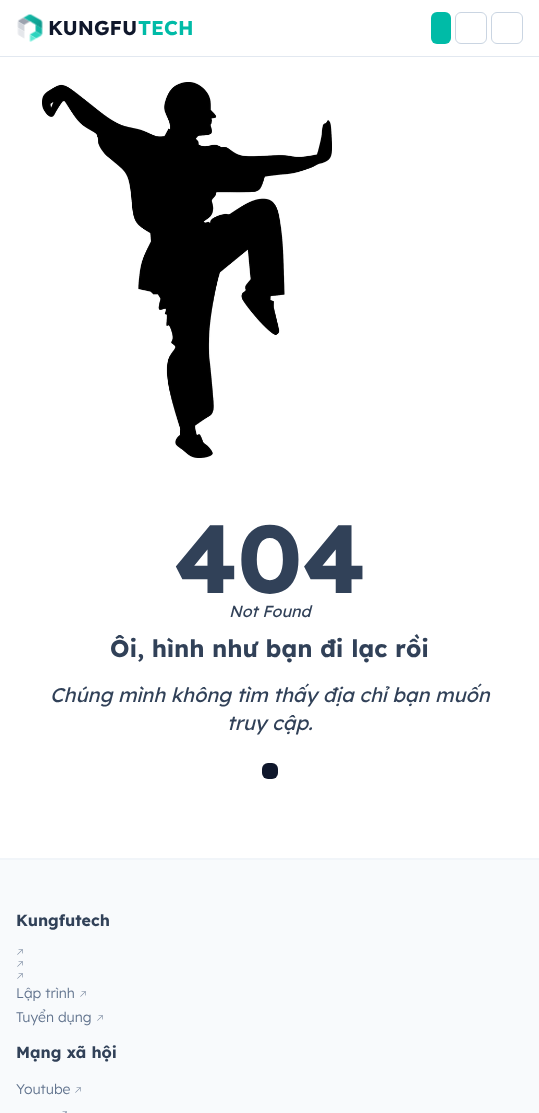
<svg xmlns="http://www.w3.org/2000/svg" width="539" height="1113">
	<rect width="100%" height="100%" fill="#FFFFFF" />
	<rect x="0" y="56" width="539" height="1" fill="#E2E8F0" />
	<image x="17" y="14" width="26" height="28" href="assets/img1.png" />
	<text x="48" y="35" font-family="Lexend" font-size="20" font-weight="700" fill="#0F172B">KUNGFU</text>
	<text x="138" y="35" font-family="Lexend" font-size="20" font-weight="700" fill="#00BBA7">TECH</text>
	<rect x="431" y="12" width="20" height="32" rx="6" fill="#00BBA7" />
	<rect x="455.5" y="12.5" width="31" height="31" rx="5.5" fill="none" stroke="#CAD5E2" />
	<rect x="491.5" y="12.5" width="31" height="31" rx="5.5" fill="none" stroke="#CAD5E2" />
	<image x="42" y="82" width="290" height="376" href="assets/img2.png" />
	<text x="174" y="593" font-family="Lexend" font-size="96" font-weight="700" fill="#314158">404</text>
	<text x="229" y="617" font-family="Lexend" font-size="16" font-style="italic" fill="#314158">Not Found</text>
	<text x="110" y="657" font-family="Lexend" font-size="24" font-weight="700" fill="#314158">Ôi, hình như bạn đi lạc rồi</text>
	<g font-family="Lexend" font-size="20" font-style="italic" fill="#314158">
		<text x="50" y="702">Chúng mình không tìm thấy địa chỉ bạn muốn</text>
		<text x="227" y="730">truy cập.</text>
	</g>
	<rect x="262" y="763" width="16" height="16" rx="6" fill="#0F172B" />
	<rect x="0" y="860" width="539" height="253" fill="#F8FAFC" />
	<rect x="0" y="858" width="539" height="2" fill="#F1F5F9" />
	<text x="16" y="926" font-family="Lexend" font-size="16" font-weight="700" fill="#314158">Kungfutech</text>
	<image x="17" y="949" width="6" height="6" href="assets/img3.png" />
	<image x="17" y="961" width="6" height="6" href="assets/img3.png" />
	<image x="17" y="973" width="6" height="6" href="assets/img3.png" />
	<text x="16" y="998" font-family="Lexend" font-size="14" font-weight="300" fill="#62748E">Lập trình</text>
	<image x="80" y="991" width="6" height="6" href="assets/img3.png" />
	<text x="16" y="1022" font-family="Lexend" font-size="14" font-weight="300" fill="#62748E">Tuyển dụng</text>
	<image x="97" y="1015" width="6" height="6" href="assets/img3.png" />
	<text x="16" y="1058" font-family="Lexend" font-size="16" font-weight="700" fill="#314158">Mạng xã hội</text>
	<text x="16" y="1094" font-family="Lexend" font-size="14" font-weight="300" fill="#62748E">Youtube</text>
	<image x="75" y="1087" width="6" height="6" href="assets/img3.png" />
	<image x="62" y="1111" width="5" height="2" href="assets/img4.png" />
</svg>
